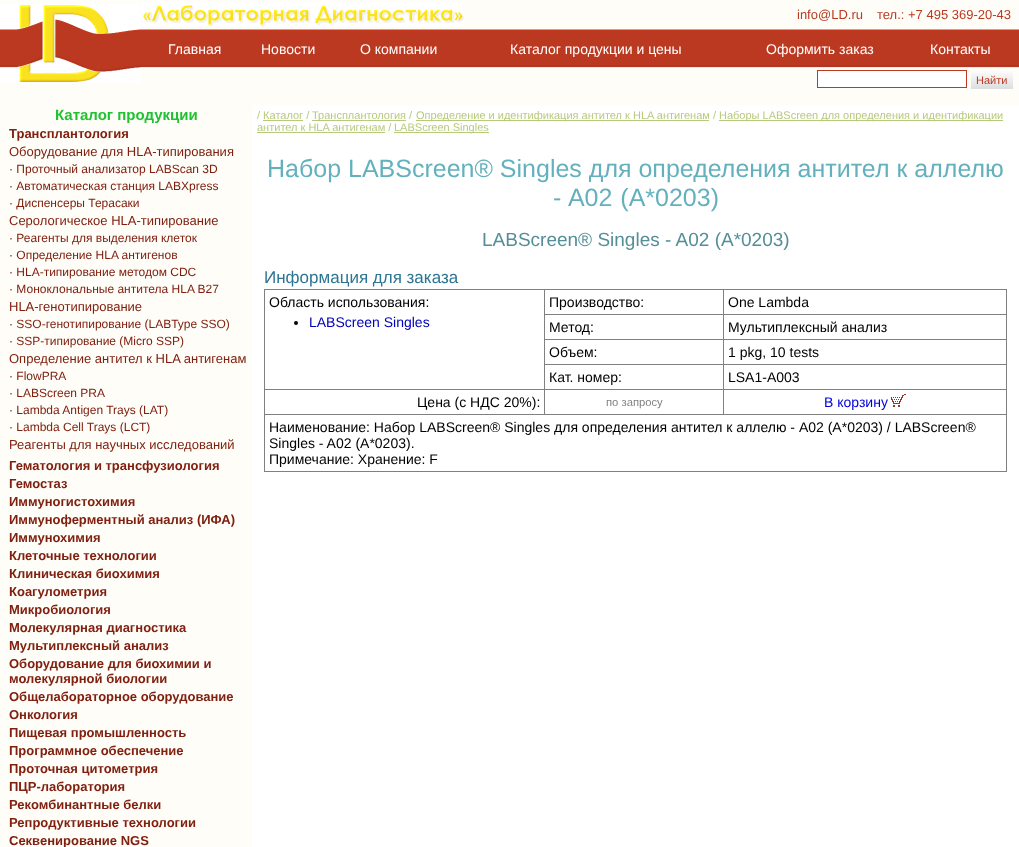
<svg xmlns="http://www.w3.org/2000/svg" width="1019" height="847">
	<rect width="100%" height="100%" fill="#FEFDF8" />
	<image x="0" y="4" width="141" height="79" href="assets/img1.png" />
	<image x="142" y="2" width="322" height="25" href="assets/img2.png" />
	<g font-family="Liberation Sans" font-size="13" fill="#BC3921">
		<text x="797" y="19">info@LD.ru</text>
		<text x="877" y="19">тел.: +7 495 369-20-43</text>
	</g>
	<image x="141" y="29" width="878" height="39" href="assets/img3.png" />
	<g font-family="Liberation Sans" font-size="14" fill="#FFFFFF">
		<text x="168" y="54">Главная</text>
		<text x="261" y="54">Новости</text>
		<text x="360" y="54">О компании</text>
		<text x="510" y="54">Каталог продукции и цены</text>
		<text x="766" y="54">Оформить заказ</text>
		<text x="930" y="54">Контакты</text>
	</g>
	<rect x="817.5" y="70.5" width="149" height="17" fill="#FFFFFF" stroke="#BD3A22" />
	<image x="971" y="71" width="42" height="18" href="assets/img4.png" />
	<text x="976" y="84" font-family="Liberation Sans" font-size="11" fill="#BC3921">Найти</text>
	<text x="55" y="120" font-family="Liberation Sans" font-size="15" font-weight="700" fill="#20C233">Каталог продукции</text>
	<text x="9" y="138" font-family="Liberation Sans" font-size="13" font-weight="700" fill="#802010">Трансплантология</text>
	<text x="9" y="156" font-family="Liberation Sans" font-size="13" fill="#802010">Оборудование для HLA-типирования</text>
	<g font-family="Liberation Sans" font-size="12" fill="#802010">
		<text x="9" y="173">· Проточный анализатор LABScan 3D</text>
		<text x="9" y="190">· Автоматическая станция LABXpress</text>
		<text x="9" y="207">· Диспенсеры Терасаки</text>
	</g>
	<text x="9" y="225" font-family="Liberation Sans" font-size="13" fill="#802010">Серологическое HLA-типирование</text>
	<g font-family="Liberation Sans" font-size="12" fill="#802010">
		<text x="9" y="242">· Реагенты для выделения клеток</text>
		<text x="9" y="259">· Определение HLA антигенов</text>
		<text x="9" y="276">· HLA-типирование методом CDC</text>
		<text x="9" y="293">· Моноклональные антитела HLA B27</text>
	</g>
	<text x="9" y="311" font-family="Liberation Sans" font-size="13" fill="#802010">HLA-генотипирование</text>
	<g font-family="Liberation Sans" font-size="12" fill="#802010">
		<text x="9" y="328">· SSO-генотипирование (LABType SSO)</text>
		<text x="9" y="345">· SSP-типирование (Micro SSP)</text>
	</g>
	<text x="9" y="363" font-family="Liberation Sans" font-size="13" fill="#802010">Определение антител к HLA антигенам</text>
	<g font-family="Liberation Sans" font-size="12" fill="#802010">
		<text x="9" y="380">· FlowPRA</text>
		<text x="9" y="397">· LABScreen PRA</text>
		<text x="9" y="414">· Lambda Antigen Trays (LAT)</text>
		<text x="9" y="431">· Lambda Cell Trays (LCT)</text>
	</g>
	<text x="9" y="449" font-family="Liberation Sans" font-size="13" fill="#802010">Реагенты для научных исследований</text>
	<g font-family="Liberation Sans" font-size="13" font-weight="700" fill="#802010">
		<text x="9" y="470">Гематология и трансфузиология</text>
		<text x="9" y="488">Гемостаз</text>
		<text x="9" y="506">Иммуногистохимия</text>
		<text x="9" y="524">Иммуноферментный анализ (ИФА)</text>
		<text x="9" y="542">Иммунохимия</text>
		<text x="9" y="560">Клеточные технологии</text>
		<text x="9" y="578">Клиническая биохимия</text>
		<text x="9" y="596">Коагулометрия</text>
		<text x="9" y="614">Микробиология</text>
		<text x="9" y="632">Молекулярная диагностика</text>
		<text x="9" y="650">Мультиплексный анализ</text>
		<text x="9" y="668">Оборудование для биохимии и</text>
		<text x="9" y="683">молекулярной биологии</text>
		<text x="9" y="701">Общелабораторное оборудование</text>
		<text x="9" y="719">Онкология</text>
		<text x="9" y="737">Пищевая промышленность</text>
		<text x="9" y="755">Программное обеспечение</text>
		<text x="9" y="773">Проточная цитометрия</text>
		<text x="9" y="791">ПЦР-лаборатория</text>
		<text x="9" y="809">Рекомбинантные белки</text>
		<text x="9" y="827">Репродуктивные технологии</text>
		<text x="9" y="845">Секвенирование NGS</text>
	</g>
	<rect x="252" y="105" width="767" height="742" fill="#FFFFFF" />
	<text x="257" y="119" font-family="Liberation Sans" font-size="11" fill="#B7CA7C">/ Каталог /</text>
	<rect x="312" y="120" width="94" height="1" fill="#B7CA7C" />
	<text x="312" y="119" font-family="Liberation Sans" font-size="11" fill="#B7CA7C">Трансплантология /</text>
	<rect x="416" y="120" width="293" height="1" fill="#B7CA7C" />
	<text x="416" y="119" font-family="Liberation Sans" font-size="11" fill="#B7CA7C">Определение и идентификация антител к HLA антигенам /</text>
	<rect x="719" y="120" width="284" height="1" fill="#B7CA7C" />
	<text x="719" y="119" font-family="Liberation Sans" font-size="11" fill="#B7CA7C">Наборы LABScreen для определения и идентификации</text>
	<rect x="263" y="120" width="40" height="1" fill="#B7CA7C" />
	<text x="257" y="131" font-family="Liberation Sans" font-size="11" fill="#B7CA7C">антител к HLA антигенам /</text>
	<rect x="257" y="132" width="128" height="1" fill="#B7CA7C" />
	<rect x="394" y="132" width="95" height="1" fill="#B7CA7C" />
	<text x="394" y="131" font-family="Liberation Sans" font-size="11" fill="#B7CA7C">LABScreen Singles</text>
	<g font-family="Liberation Sans" font-size="25" fill="#63B1BD">
		<text x="267" y="177">Набор LABScreen® Singles для определения антител к аллелю</text>
		<text x="553" y="206" word-spacing="1">- A02 (A*0203)</text>
	</g>
	<text x="482" y="246" font-family="Liberation Sans" font-size="19" fill="#548E98">LABScreen® Singles - A02 (A*0203)</text>
	<text x="264" y="283" font-family="Liberation Sans" font-size="17" fill="#2D7593">Информация для заказа</text>
	<rect x="723" y="289" width="284" height="1" fill="#808080" />
	<rect x="723" y="314" width="284" height="1" fill="#808080" />
	<rect x="723" y="339" width="284" height="1" fill="#808080" />
	<rect x="723" y="364" width="284" height="1" fill="#808080" />
	<rect x="723" y="389" width="284" height="1" fill="#808080" />
	<rect x="264" y="414" width="743" height="1" fill="#808080" />
	<rect x="723" y="389" width="1" height="26" fill="#808080" />
	<rect x="544" y="389" width="180" height="1" fill="#808080" />
	<rect x="723" y="364" width="1" height="26" fill="#808080" />
	<rect x="544" y="364" width="180" height="1" fill="#808080" />
	<rect x="723" y="339" width="1" height="26" fill="#808080" />
	<rect x="544" y="339" width="180" height="1" fill="#808080" />
	<rect x="723" y="314" width="1" height="26" fill="#808080" />
	<rect x="544" y="314" width="180" height="1" fill="#808080" />
	<rect x="723" y="289" width="1" height="26" fill="#808080" />
	<rect x="544" y="289" width="180" height="1" fill="#808080" />
	<rect x="544" y="389" width="1" height="26" fill="#808080" />
	<rect x="264" y="389" width="281" height="1" fill="#808080" />
	<rect x="544" y="364" width="1" height="26" fill="#808080" />
	<rect x="544" y="339" width="1" height="26" fill="#808080" />
	<rect x="544" y="314" width="1" height="26" fill="#808080" />
	<rect x="544" y="289" width="1" height="26" fill="#808080" />
	<rect x="264" y="289" width="281" height="1" fill="#808080" />
	<rect x="1006" y="414" width="1" height="58" fill="#808080" />
	<rect x="264" y="471" width="743" height="1" fill="#808080" />
	<rect x="264" y="414" width="1" height="58" fill="#808080" />
	<rect x="264" y="389" width="1" height="26" fill="#808080" />
	<rect x="264" y="289" width="1" height="101" fill="#808080" />
	<text x="269" y="307" font-family="Liberation Sans" font-size="14" fill="#000000">Область использования:</text>
	<circle cx="296" cy="323" r="2" fill="#000000" />
	<text x="309" y="327" font-family="Liberation Sans" font-size="14" fill="#0000B8">LABScreen Singles</text>
	<text x="549" y="307" font-family="Liberation Sans" font-size="14" fill="#000000">Производство:</text>
	<rect x="1006" y="389" width="1" height="26" fill="#808080" />
	<rect x="1006" y="364" width="1" height="26" fill="#808080" />
	<rect x="1006" y="339" width="1" height="26" fill="#808080" />
	<rect x="1006" y="314" width="1" height="26" fill="#808080" />
	<rect x="1006" y="289" width="1" height="26" fill="#808080" />
	<g font-family="Liberation Sans" font-size="14" fill="#000000">
		<text x="728" y="307">One Lambda</text>
		<text x="549" y="332">Метод:</text>
		<text x="728" y="332">Мультиплексный анализ</text>
		<text x="549" y="357">Объем:</text>
		<text x="728" y="357">1 pkg, 10 tests</text>
		<text x="549" y="382">Кат. номер:</text>
		<text x="728" y="382">LSA1-A003</text>
		<text x="417" y="407">Цена (с НДС 20%):</text>
	</g>
	<text x="606" y="406" font-family="Liberation Sans" font-size="11.25" fill="#808080">по запросу</text>
	<text x="824" y="407" font-family="Liberation Sans" font-size="14" fill="#0000E0">В корзину</text>
	<image x="891" y="394" width="15" height="13" href="assets/img5.png" />
	<g font-family="Liberation Sans" font-size="14" fill="#000000">
		<text x="269" y="432">Наименование: Набор LABScreen® Singles для определения антител к аллелю - A02 (A*0203) / LABScreen®</text>
		<text x="269" y="448">Singles - A02 (A*0203).</text>
		<text x="269" y="464">Примечание: Хранение: F</text>
	</g>
</svg>
